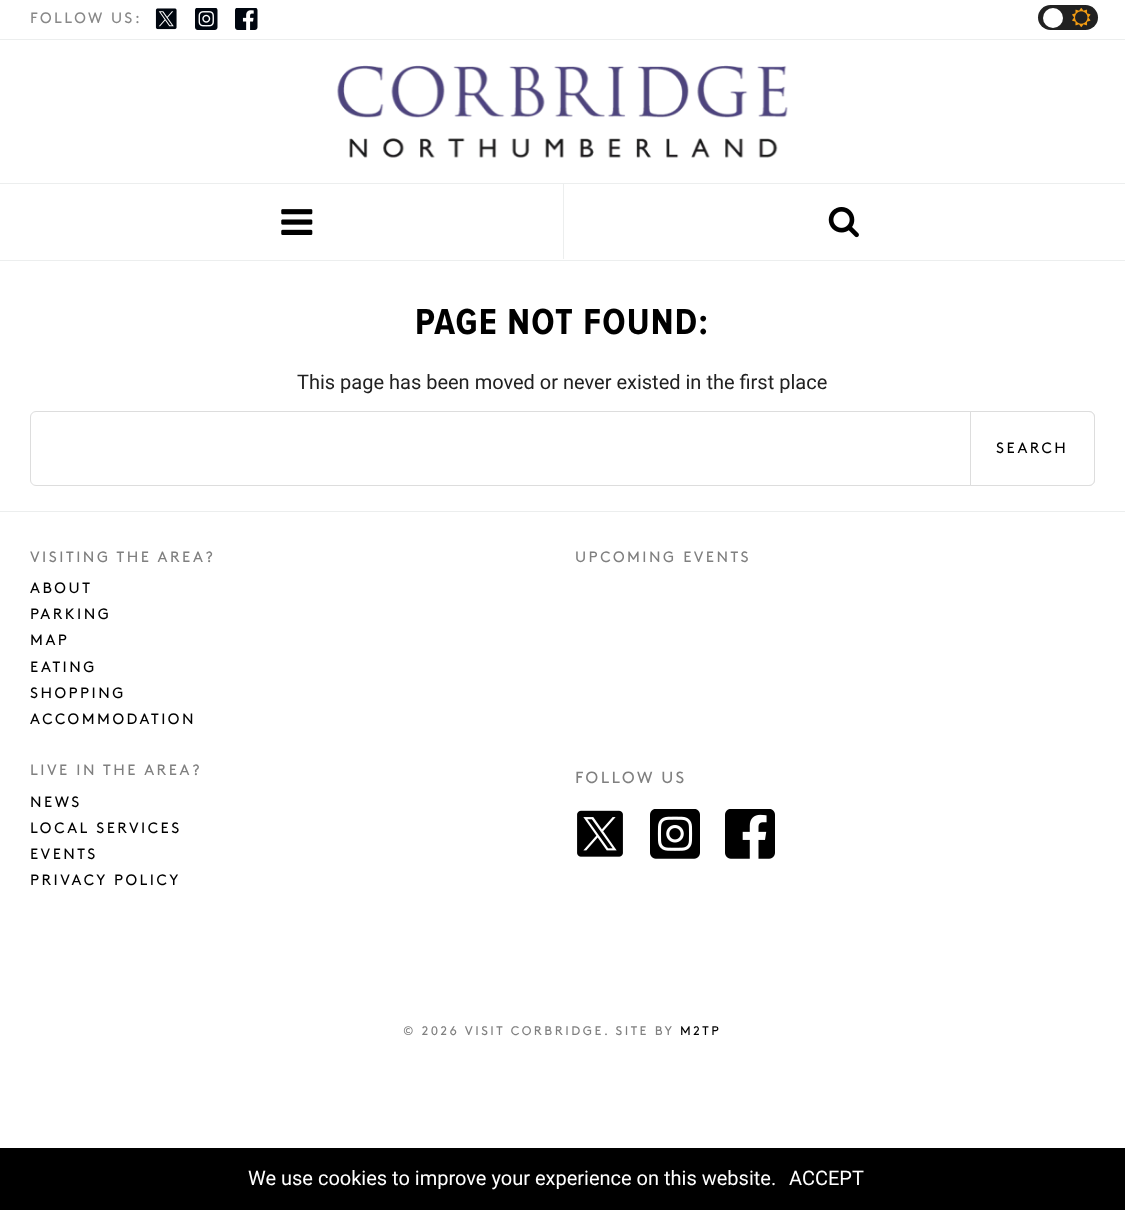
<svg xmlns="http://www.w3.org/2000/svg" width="1125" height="1210">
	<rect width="100%" height="100%" fill="#FFFFFF" />
	<rect x="0" y="39" width="1125" height="1" fill="#ECEEEE" />
	<text x="30" y="23" font-family="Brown" font-size="15" letter-spacing="2.5" fill="#888888">FOLLOW US:</text>
	<image x="155" y="8" width="22" height="22" href="assets/img1.png" />
	<image x="195" y="8" width="23" height="22" href="assets/img2.png" />
	<image x="235" y="8" width="23" height="22" href="assets/img3.png" />
	<rect x="1038" y="5" width="60" height="25" rx="12.5" fill="#212121" />
	<circle cx="1053" cy="18" r="10" fill="#FFFFFF" />
	<image x="1072" y="7" width="19" height="21" href="assets/img4.png" />
	<rect x="0" y="183" width="1125" height="1" fill="#ECEEEE" />
	<image x="337" y="65" width="451" height="93" href="assets/img5.png" />
	<rect x="0" y="260" width="1125" height="1" fill="#ECEEEE" />
	<image x="281" y="209" width="32" height="26" href="assets/img6.png" />
	<rect x="563" y="184" width="1" height="75" fill="#ECEEEE" />
	<image x="828" y="207" width="31" height="31" href="assets/img7.png" />
	<text x="415" y="334" font-family="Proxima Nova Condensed" font-size="37.5" font-weight="700" letter-spacing="1.25" fill="#000000">PAGE NOT FOUND:</text>
	<text x="297" y="389" font-family="Roboto" font-size="20" fill="#212121">This page has been moved or never existed in the first place</text>
	<rect x="30.5" y="411.5" width="1064" height="74" rx="5.5" fill="none" stroke="#DDDDDD" />
	<path d="M970.5 411.5H1089C1092 411.5 1094.5 414 1094.5 417V480C1094.5 483 1092 485.5 1089 485.5H970.5Z" fill="#FFFFFF" stroke="#DDDDDD" />
	<text x="996" y="453" font-family="Brown" font-size="15" letter-spacing="2.5" fill="#000000">SEARCH</text>
	<rect x="0" y="511" width="1125" height="1" fill="#ECEEEE" />
	<text x="30" y="562" font-family="Brown" font-size="15" letter-spacing="2.5" fill="#808080">VISITING THE AREA?</text>
	<g font-family="Brown" font-size="15" letter-spacing="2.5" fill="#000000">
		<text x="30" y="593">ABOUT</text>
		<text x="30" y="619">PARKING</text>
		<text x="30" y="645">MAP</text>
		<text x="30" y="672">EATING</text>
		<text x="30" y="698">SHOPPING</text>
		<text x="30" y="724">ACCOMMODATION</text>
	</g>
	<g font-family="Brown" font-size="15" letter-spacing="2.5" fill="#808080">
		<text x="575" y="562">UPCOMING EVENTS</text>
		<text x="30" y="775">LIVE IN THE AREA?</text>
	</g>
	<g font-family="Brown" font-size="15" letter-spacing="2.5" fill="#000000">
		<text x="30" y="807">NEWS</text>
		<text x="30" y="833">LOCAL SERVICES</text>
		<text x="30" y="859">EVENTS</text>
		<text x="30" y="885">PRIVACY POLICY</text>
	</g>
	<text x="575" y="783" font-family="Brown" font-size="16.25" letter-spacing="2.5" fill="#808080">FOLLOW US</text>
	<image x="577" y="810" width="46" height="47" href="assets/img8.png" />
	<image x="650" y="809" width="50" height="50" href="assets/img9.png" />
	<image x="725" y="809" width="50" height="50" href="assets/img10.png" />
	<text x="403" y="1035" font-family="Brown" font-size="12.5" letter-spacing="2.5" fill="#808080">© 2026 VISIT CORBRIDGE. SITE BY</text>
	<text x="680" y="1035" font-family="Brown" font-size="12.5" letter-spacing="2.5" fill="#000000">M2TP</text>
	<rect x="0" y="1148" width="1125" height="62" fill="#000000" />
	<g font-family="Roboto" font-size="20" fill="#FFFFFF">
		<text x="248" y="1185">We use cookies to improve your experience on this website.</text>
		<text x="789" y="1185">ACCEPT</text>
	</g>
</svg>
